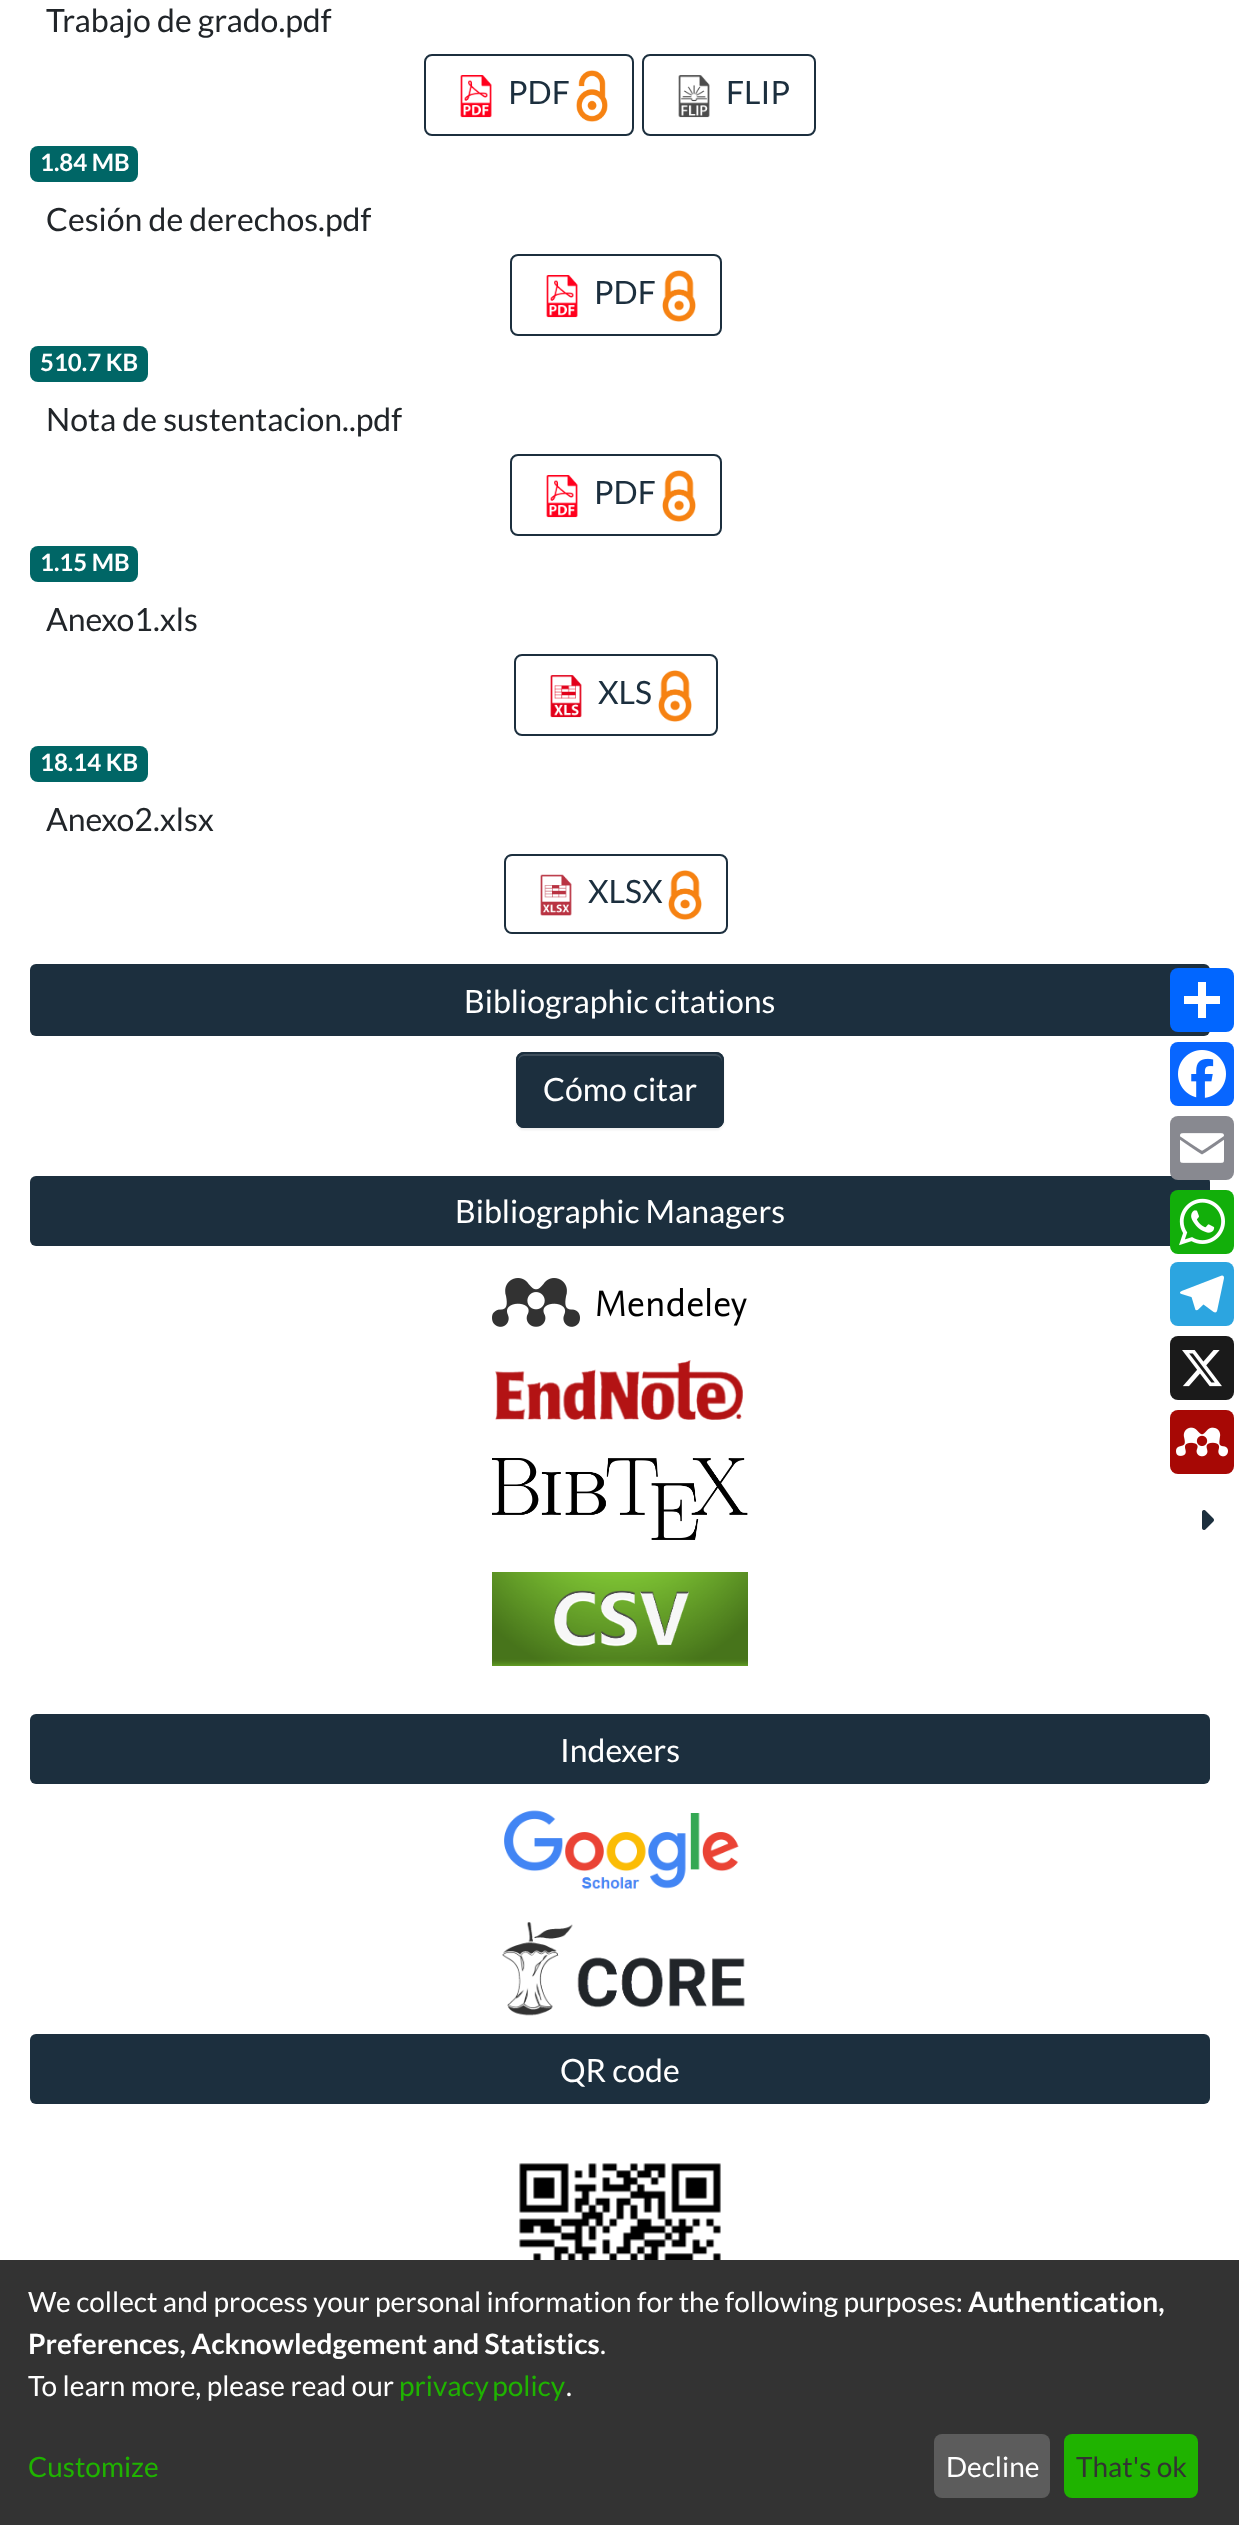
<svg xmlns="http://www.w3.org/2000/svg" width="1239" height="2525">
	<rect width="100%" height="100%" fill="#FFFFFF" />
	<text x="46" y="32" font-family="Lato" font-size="32" fill="#212529">Trabajo de grado.pdf</text>
	<rect x="425" y="55" width="208" height="80" rx="7" fill="none" stroke="#1C2F3E" stroke-width="2" />
	<image x="460" y="75" width="32" height="43" href="assets/img1.png" />
	<text x="508" y="104" font-family="Lato" font-size="32" fill="#1C2F3E">PDF</text>
	<image x="576" y="70" width="32" height="52" href="assets/img2.png" />
	<rect x="643" y="55" width="172" height="80" rx="7" fill="none" stroke="#1C2F3E" stroke-width="2" />
	<image x="678" y="75" width="32" height="43" href="assets/img3.png" />
	<text x="726" y="104" font-family="Lato" font-size="32" fill="#1C2F3E">FLIP</text>
	<rect x="30" y="146" width="108" height="36" rx="8" fill="#006666" />
	<text x="40" y="171" font-family="Lato" font-size="24" font-weight="700" fill="#FFFFFF">1.84 MB</text>
	<text x="46" y="231" font-family="Lato" font-size="32" fill="#212529">Cesión de derechos.pdf</text>
	<rect x="511" y="255" width="210" height="80" rx="7" fill="none" stroke="#1C2F3E" stroke-width="2" />
	<image x="546" y="275" width="32" height="43" href="assets/img4.png" />
	<text x="594" y="304" font-family="Lato" font-size="32" fill="#1C2F3E">PDF</text>
	<image x="662" y="270" width="34" height="52" href="assets/img5.png" />
	<rect x="30" y="346" width="118" height="36" rx="8" fill="#006666" />
	<text x="40" y="371" font-family="Lato" font-size="24" font-weight="700" fill="#FFFFFF">510.7 KB</text>
	<text x="46" y="431" font-family="Lato" font-size="32" fill="#212529">Nota de sustentacion..pdf</text>
	<rect x="511" y="455" width="210" height="80" rx="7" fill="none" stroke="#1C2F3E" stroke-width="2" />
	<image x="546" y="475" width="32" height="43" href="assets/img6.png" />
	<text x="594" y="504" font-family="Lato" font-size="32" fill="#1C2F3E">PDF</text>
	<image x="662" y="470" width="34" height="52" href="assets/img5.png" />
	<rect x="30" y="546" width="108" height="36" rx="8" fill="#006666" />
	<text x="40" y="571" font-family="Lato" font-size="24" font-weight="700" fill="#FFFFFF">1.15 MB</text>
	<text x="46" y="631" font-family="Lato" font-size="32" fill="#212529">Anexo1.xls</text>
	<rect x="515" y="655" width="202" height="80" rx="7" fill="none" stroke="#1C2F3E" stroke-width="2" />
	<image x="550" y="675" width="32" height="43" href="assets/img7.png" />
	<text x="598" y="704" font-family="Lato" font-size="32" fill="#1C2F3E">XLS</text>
	<image x="658" y="670" width="34" height="52" href="assets/img8.png" />
	<rect x="30" y="746" width="118" height="36" rx="8" fill="#006666" />
	<text x="40" y="771" font-family="Lato" font-size="24" font-weight="700" fill="#FFFFFF">18.14 KB</text>
	<text x="46" y="831" font-family="Lato" font-size="32" fill="#212529">Anexo2.xlsx</text>
	<rect x="505" y="855" width="222" height="78" rx="7" fill="none" stroke="#1C2F3E" stroke-width="2" />
	<image x="540" y="874" width="32" height="42" href="assets/img9.png" />
	<text x="588" y="903" font-family="Lato" font-size="32" fill="#1C2F3E">XLSX</text>
	<image x="668" y="870" width="34" height="50" href="assets/img10.png" />
	<rect x="30" y="964" width="1180" height="72" rx="6" fill="#1C2F3E" />
	<text x="464" y="1013" font-family="Lato" font-size="32" fill="#FFFFFF">Bibliographic citations</text>
	<rect x="516" y="1054" width="208" height="76" rx="8" fill="#000000" fill-opacity="0.07" filter="blur(1px)" />
	<rect x="516" y="1052" width="208" height="76" rx="8" fill="#1C2F3E" />
	<path d="M524 1056H716C719 1056 722 1059 722 1062V1060C722 1057 719 1054 716 1054H524C521 1054 518 1057 518 1060V1062C518 1059 521 1056 524 1056Z" fill="#3E4E5B" />
	<rect x="517" y="1053" width="206" height="74" rx="7" fill="none" stroke="#1C2F3E" stroke-width="2" />
	<text x="543" y="1101" font-family="Lato" font-size="32" fill="#FFFFFF">Cómo citar</text>
	<rect x="30" y="1176" width="1180" height="70" rx="6" fill="#1C2F3E" />
	<text x="455" y="1223" font-family="Lato" font-size="32" fill="#FFFFFF">Bibliographic Managers</text>
	<image x="492" y="1278" width="255" height="49" href="assets/img11.png" />
	<image x="495" y="1360" width="248" height="60" href="assets/img12.png" />
	<image x="492" y="1458" width="256" height="82" href="assets/img13.png" />
	<image x="492" y="1572" width="256" height="94" href="assets/img14.png" />
	<rect x="30" y="1714" width="1180" height="70" rx="6" fill="#1C2F3E" />
	<text x="560" y="1762" font-family="Lato" font-size="32" fill="#FFFFFF">Indexers</text>
	<image x="504" y="1810" width="235" height="79" href="assets/img15.png" />
	<image x="502" y="1922" width="243" height="94" href="assets/img16.png" />
	<rect x="30" y="2034" width="1180" height="70" rx="6" fill="#1C2F3E" />
	<text x="560" y="2082" font-family="Lato" font-size="32" fill="#FFFFFF">QR code</text>
	<image x="519" y="2163" width="202" height="97" href="assets/img17.png" />
	<rect x="1170" y="968" width="64" height="64" rx="8" fill="#0166FF" />
	<rect x="1198" y="982" width="8" height="36" fill="#FFFFFF" />
	<rect x="1184" y="996" width="36" height="8" fill="#FFFFFF" />
	<rect x="1170" y="1042" width="64" height="64" rx="8" fill="#0866FF" />
	<image x="1178" y="1050" width="48" height="48" href="assets/img18.png" />
	<rect x="1170" y="1116" width="64" height="64" rx="8" fill="#888990" />
	<image x="1180" y="1133" width="44" height="30" href="assets/img19.png" />
	<rect x="1170" y="1190" width="64" height="64" rx="8" fill="#12AF0A" />
	<image x="1179" y="1198" width="46" height="48" href="assets/img20.png" />
	<rect x="1170" y="1262" width="64" height="64" rx="8" fill="#2CA5E0" />
	<image x="1180" y="1275" width="44" height="38" href="assets/img21.png" />
	<rect x="1170" y="1336" width="64" height="64" rx="8" fill="#1A1A1A" />
	<image x="1182" y="1350" width="40" height="37" href="assets/img22.png" />
	<rect x="1170" y="1410" width="64" height="64" rx="8" fill="#A70805" />
	<image x="1176" y="1427" width="52" height="30" href="assets/img23.png" />
	<image x="1202" y="1510" width="12" height="20" href="assets/img24.png" />
	<rect x="0" y="2260" width="1239" height="265" fill="#333333" />
	<text x="28" y="2312" font-family="Lato" font-size="28" fill="#FFFFFF">We collect and process your personal information for the following purposes:</text>
	<g font-family="Lato" font-size="28" font-weight="700" fill="#FFFFFF">
		<text x="968" y="2312">Authentication,</text>
		<text x="28" y="2354">Preferences, Acknowledgement and Statistics</text>
	</g>
	<g font-family="Lato" font-size="28" fill="#FFFFFF">
		<text x="600" y="2354">.</text>
		<text x="28" y="2396">To learn more, please read our</text>
	</g>
	<text x="399" y="2396" word-spacing="-2" font-family="Lato" font-size="28" fill="#1FB300">privacy policy</text>
	<text x="566" y="2396" font-family="Lato" font-size="28" fill="#FFFFFF">.</text>
	<text x="28" y="2477" font-family="Lato" font-size="28" fill="#1FB300">Customize</text>
	<rect x="934" y="2434" width="116" height="64" rx="8" fill="#5C5C5C" />
	<text x="946" y="2477" font-family="Lato" font-size="28" fill="#FFFFFF">Decline</text>
	<rect x="1064" y="2434" width="134" height="64" rx="8" fill="#1FB300" />
	<text x="1076" y="2477" font-family="Lato" font-size="28" fill="#333333">That's ok</text>
</svg>
